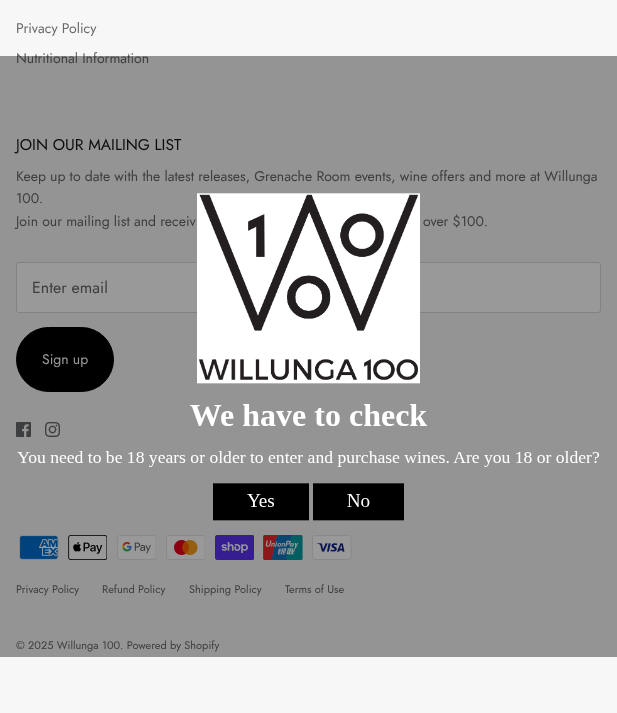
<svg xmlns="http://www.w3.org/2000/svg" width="617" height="713">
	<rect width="100%" height="100%" fill="#F7F7F8" />
	<g font-family="Jost" font-size="14" fill="#676869">
		<text x="16" y="33">Privacy Policy</text>
		<text x="16" y="63">Nutritional Information</text>
	</g>
	<text x="16" y="150" font-family="Jost" font-size="15.6" fill="#171717">JOIN OUR MAILING LIST</text>
	<g font-family="Jost" font-size="14" fill="#676869">
		<text x="16" y="181">Keep up to date with the latest releases, Grenache Room events, wine offers and more at Willunga</text>
		<text x="16" y="203">100.</text>
		<text x="16" y="226">Join our mailing list and receiv</text>
		<text x="423" y="226">over $100.</text>
	</g>
	<rect x="16.5" y="262.5" width="584" height="50" rx="2.5" fill="#FFFFFF" stroke="#D9D9DA" />
	<text x="32" y="293" font-family="Jost" font-size="16" fill="#676869">Enter email</text>
	<rect x="16.5" y="327.5" width="97" height="64" rx="32" fill="#000000" stroke="#000000" />
	<text x="42" y="364" font-family="Jost" font-size="14" fill="#FFFFFF">Sign up</text>
	<image x="16" y="422" width="15" height="15" href="assets/img1.png" />
	<image x="45" y="422" width="15" height="15" href="assets/img2.png" />
	<image x="19" y="535" width="40" height="25" href="assets/img3.png" />
	<image x="68" y="535" width="39" height="25" href="assets/img4.png" />
	<image x="117" y="535" width="39" height="25" href="assets/img5.png" />
	<image x="166" y="535" width="39" height="25" href="assets/img6.png" />
	<image x="215" y="535" width="39" height="25" href="assets/img7.png" />
	<image x="263" y="535" width="40" height="25" href="assets/img8.png" />
	<image x="312" y="535" width="40" height="25" href="assets/img9.png" />
	<g font-family="Jost" font-size="11" fill="#676869">
		<text x="16" y="593">Privacy Policy</text>
		<text x="102" y="593">Refund Policy</text>
		<text x="189" y="593">Shipping Policy</text>
		<text x="285" y="593">Terms of Use</text>
		<text x="16" y="649">© 2025 Willunga 100. Powered by Shopify</text>
	</g>
	<image x="0" y="56" width="617" height="601" href="assets/img10.png" />
</svg>
